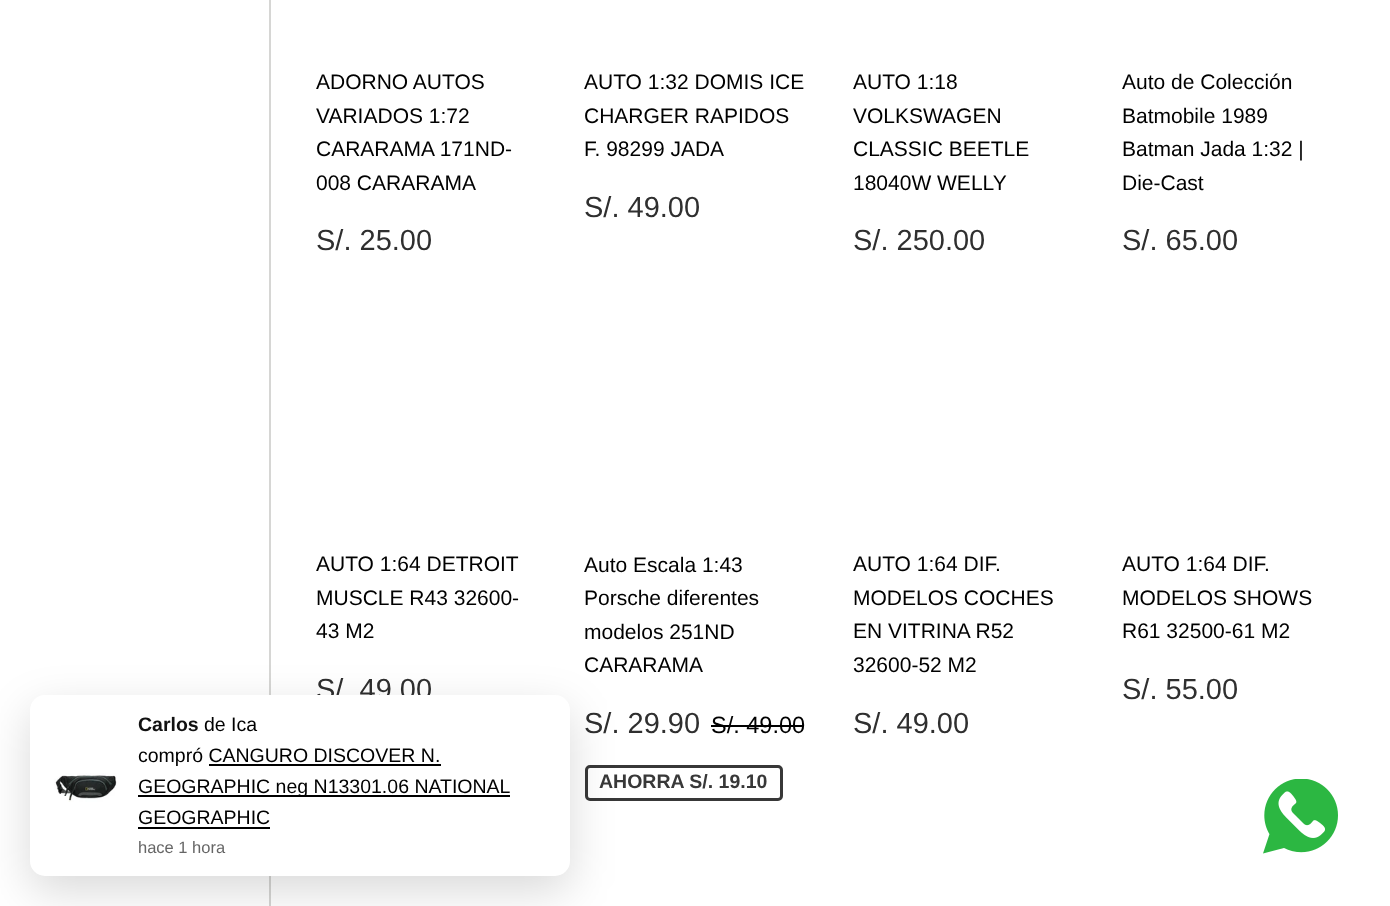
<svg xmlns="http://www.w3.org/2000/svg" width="1390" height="906">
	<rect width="100%" height="100%" fill="#FFFFFF" />
	<rect x="269" y="0" width="2" height="906" fill="#D6D6D4" />
	<g font-family="Arimo" font-size="21" fill="#000000">
		<text x="316" y="89">ADORNO AUTOS</text>
		<text x="316" y="123">VARIADOS 1:72</text>
		<text x="316" y="156">CARARAMA 171ND-</text>
		<text x="316" y="190">008 CARARAMA</text>
	</g>
	<text x="316" y="250" font-family="Arimo" font-size="29" fill="#2F2F2F">S/. 25.00</text>
	<g font-family="Arimo" font-size="21" fill="#000000">
		<text x="584" y="89">AUTO 1:32 DOMIS ICE</text>
		<text x="584" y="123">CHARGER RAPIDOS</text>
		<text x="584" y="156">F. 98299 JADA</text>
	</g>
	<text x="584" y="217" font-family="Arimo" font-size="29" fill="#2F2F2F">S/. 49.00</text>
	<g font-family="Arimo" font-size="21" fill="#000000">
		<text x="853" y="89">AUTO 1:18</text>
		<text x="853" y="123">VOLKSWAGEN</text>
		<text x="853" y="156">CLASSIC BEETLE</text>
		<text x="853" y="190">18040W WELLY</text>
	</g>
	<text x="853" y="250" font-family="Arimo" font-size="29" fill="#2F2F2F">S/. 250.00</text>
	<g font-family="Arimo" font-size="21" fill="#000000">
		<text x="1122" y="89">Auto de Colección</text>
		<text x="1122" y="123">Batmobile 1989</text>
		<text x="1122" y="156">Batman Jada 1:32 |</text>
		<text x="1122" y="190">Die-Cast</text>
	</g>
	<text x="1122" y="250" font-family="Arimo" font-size="29" fill="#2F2F2F">S/. 65.00</text>
	<g font-family="Arimo" font-size="21" fill="#000000">
		<text x="316" y="571">AUTO 1:64 DETROIT</text>
		<text x="316" y="605">MUSCLE R43 32600-</text>
		<text x="316" y="638">43 M2</text>
	</g>
	<text x="316" y="699" font-family="Arimo" font-size="29" fill="#2F2F2F">S/. 49.00</text>
	<g font-family="Arimo" font-size="21" fill="#000000">
		<text x="584" y="572">Auto Escala 1:43</text>
		<text x="584" y="605">Porsche diferentes</text>
		<text x="584" y="639">modelos 251ND</text>
		<text x="584" y="672">CARARAMA</text>
	</g>
	<text x="584" y="733" font-family="Arimo" font-size="29" fill="#2F2F2F">S/. 29.90</text>
	<text x="711" y="733" font-family="Arimo" font-size="23.5" fill="#000000">S/. 49.00</text>
	<rect x="711" y="725" width="93" height="2" fill="#000000" />
	<rect x="586.5" y="766.5" width="195" height="33" rx="3.5" fill="none" stroke="#383838" stroke-width="3" />
	<text x="599" y="788" font-family="Arimo" font-size="19.5" font-weight="700" fill="#383838">AHORRA S/. 19.10</text>
	<g font-family="Arimo" font-size="21" fill="#000000">
		<text x="853" y="571">AUTO 1:64 DIF.</text>
		<text x="853" y="605">MODELOS COCHES</text>
		<text x="853" y="638">EN VITRINA R52</text>
		<text x="853" y="672">32600-52 M2</text>
	</g>
	<text x="853" y="733" font-family="Arimo" font-size="29" fill="#2F2F2F">S/. 49.00</text>
	<g font-family="Arimo" font-size="21" fill="#000000">
		<text x="1122" y="571">AUTO 1:64 DIF.</text>
		<text x="1122" y="605">MODELOS SHOWS</text>
		<text x="1122" y="638">R61 32500-61 M2</text>
	</g>
	<text x="1122" y="699" font-family="Arimo" font-size="29" fill="#2F2F2F">S/. 55.00</text>
	<rect x="30" y="710" width="540" height="181" rx="15" fill="#000000" fill-opacity="0.15" filter="blur(22.5px)" />
	<rect x="30" y="695" width="540" height="181" rx="15" fill="#FFFFFF" />
	<image x="54" y="773" width="63" height="29" href="assets/img1.png" />
	<text x="138" y="731" font-family="Arimo" font-size="19.5" font-weight="700" fill="#111111">Carlos</text>
	<g font-family="Arimo" font-size="19.5" fill="#000000">
		<text x="204" y="731">de Ica</text>
		<text x="138" y="762">compró CANGURO DISCOVER N.</text>
	</g>
	<rect x="138" y="795" width="372" height="2" fill="#000000" />
	<text x="138" y="793" font-family="Arimo" font-size="19.5" fill="#000000">GEOGRAPHIC neg N13301.06 NATIONAL</text>
	<rect x="209" y="764" width="232" height="2" fill="#000000" />
	<text x="138" y="824" font-family="Arimo" font-size="19.5" fill="#000000">GEOGRAPHIC</text>
	<rect x="138" y="827" width="132" height="2" fill="#000000" />
	<text x="138" y="853" font-family="Arimo" font-size="16.5" fill="#666666">hace 1 hora</text>
	<image x="1263" y="779" width="75" height="75" href="assets/img2.png" />
</svg>
